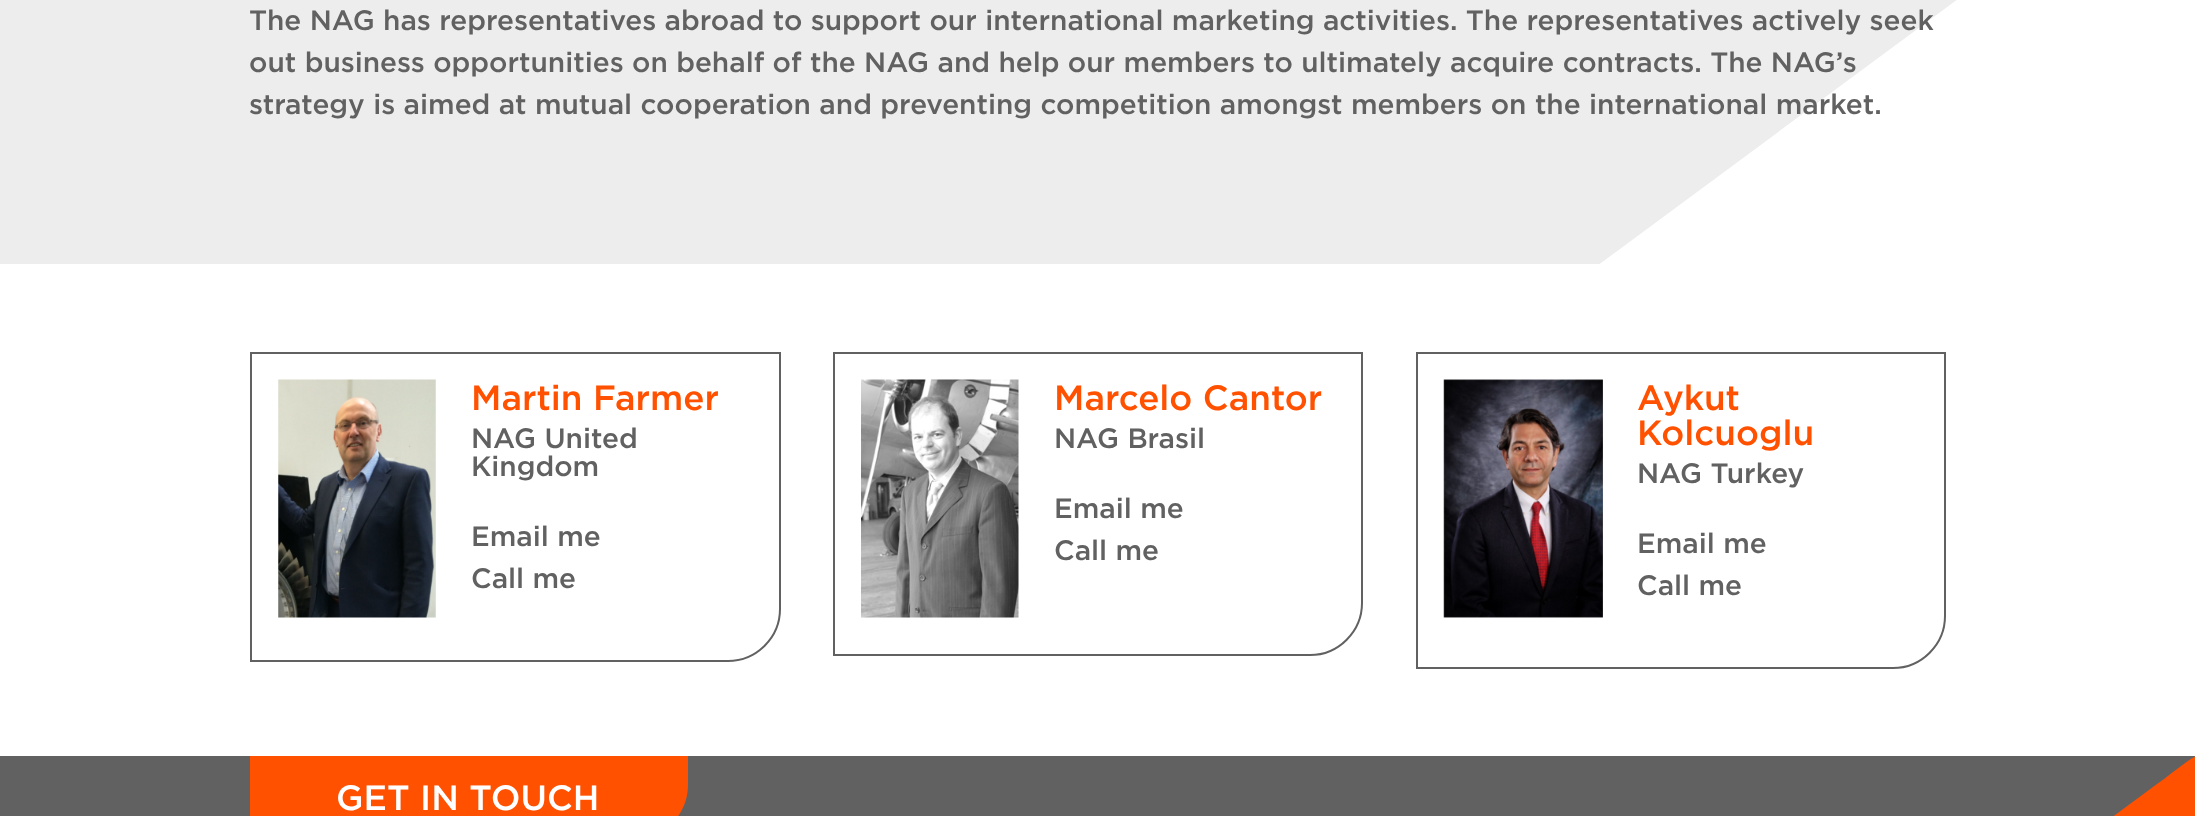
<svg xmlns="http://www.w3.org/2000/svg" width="2195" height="816">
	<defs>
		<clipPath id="clip1"><rect x="0" y="0" width="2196" height="264" /></clipPath>
	</defs>
	<rect width="100%" height="100%" fill="#FFFFFF" />
	<g clip-path="url(#clip1)">
		<path d="M0 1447L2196-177H0Z" fill="#EEEDED" />
	</g>
	<g font-family="Gotham" font-size="28" font-weight="500" fill="#616161">
		<text x="249" y="30">The NAG has representatives abroad to support our international marketing activities. The representatives actively seek</text>
		<text x="249" y="72">out business opportunities on behalf of the NAG and help our members to ultimately acquire contracts. The NAG’s</text>
		<text x="249" y="114">strategy is aimed at mutual cooperation and preventing competition amongst members on the international market.</text>
	</g>
	<path d="M251 353H780V609C780 637.5 756.5 661 728 661H251Z" fill="none" stroke="#616161" stroke-width="2" />
	<image x="278" y="379" width="158" height="239" href="assets/img1.png" />
	<text x="471" y="410" font-family="Gotham" font-size="35" font-weight="500" fill="#FF5100">Martin Farmer</text>
	<g font-family="Gotham" font-size="28" font-weight="500" fill="#616161">
		<text x="471" y="448">NAG United</text>
		<text x="471" y="476">Kingdom</text>
		<text x="471" y="546">Email me</text>
		<text x="471" y="588">Call me</text>
	</g>
	<path d="M834 353H1362V603C1362 631.5 1338.5 655 1310 655H834Z" fill="none" stroke="#616161" stroke-width="2" />
	<image x="861" y="379" width="158" height="239" href="assets/img2.png" />
	<text x="1054" y="410" font-family="Gotham" font-size="35" font-weight="500" fill="#FF5100">Marcelo Cantor</text>
	<g font-family="Gotham" font-size="28" font-weight="500" fill="#616161">
		<text x="1054" y="448">NAG Brasil</text>
		<text x="1054" y="518">Email me</text>
		<text x="1054" y="560">Call me</text>
	</g>
	<path d="M1417 353H1945V616C1945 644.5 1921.5 668 1893 668H1417Z" fill="none" stroke="#616161" stroke-width="2" />
	<image x="1443" y="379" width="160" height="239" href="assets/img3.png" />
	<g font-family="Gotham" font-size="35" font-weight="500" fill="#FF5100">
		<text x="1637" y="410">Aykut</text>
		<text x="1637" y="445">Kolcuoglu</text>
	</g>
	<g font-family="Gotham" font-size="28" font-weight="500" fill="#616161">
		<text x="1637" y="483">NAG Turkey</text>
		<text x="1637" y="553">Email me</text>
		<text x="1637" y="595">Call me</text>
	</g>
	<rect x="0" y="756" width="2195" height="60" fill="#616161" />
	<path d="M433 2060C446 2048 460 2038 475 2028L2157 784C2170 775 2182 764 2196 756V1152C2186 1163 2180 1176 2173 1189L1647 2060Z" fill="#FF5100" />
	<path d="M250 756H688V785C688 814.5 664.5 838 635 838H250Z" fill="#FF5100" />
	<text x="336" y="810" font-family="Gotham" font-size="35" font-weight="500" fill="#FFFFFF">GET IN TOUCH</text>
</svg>
